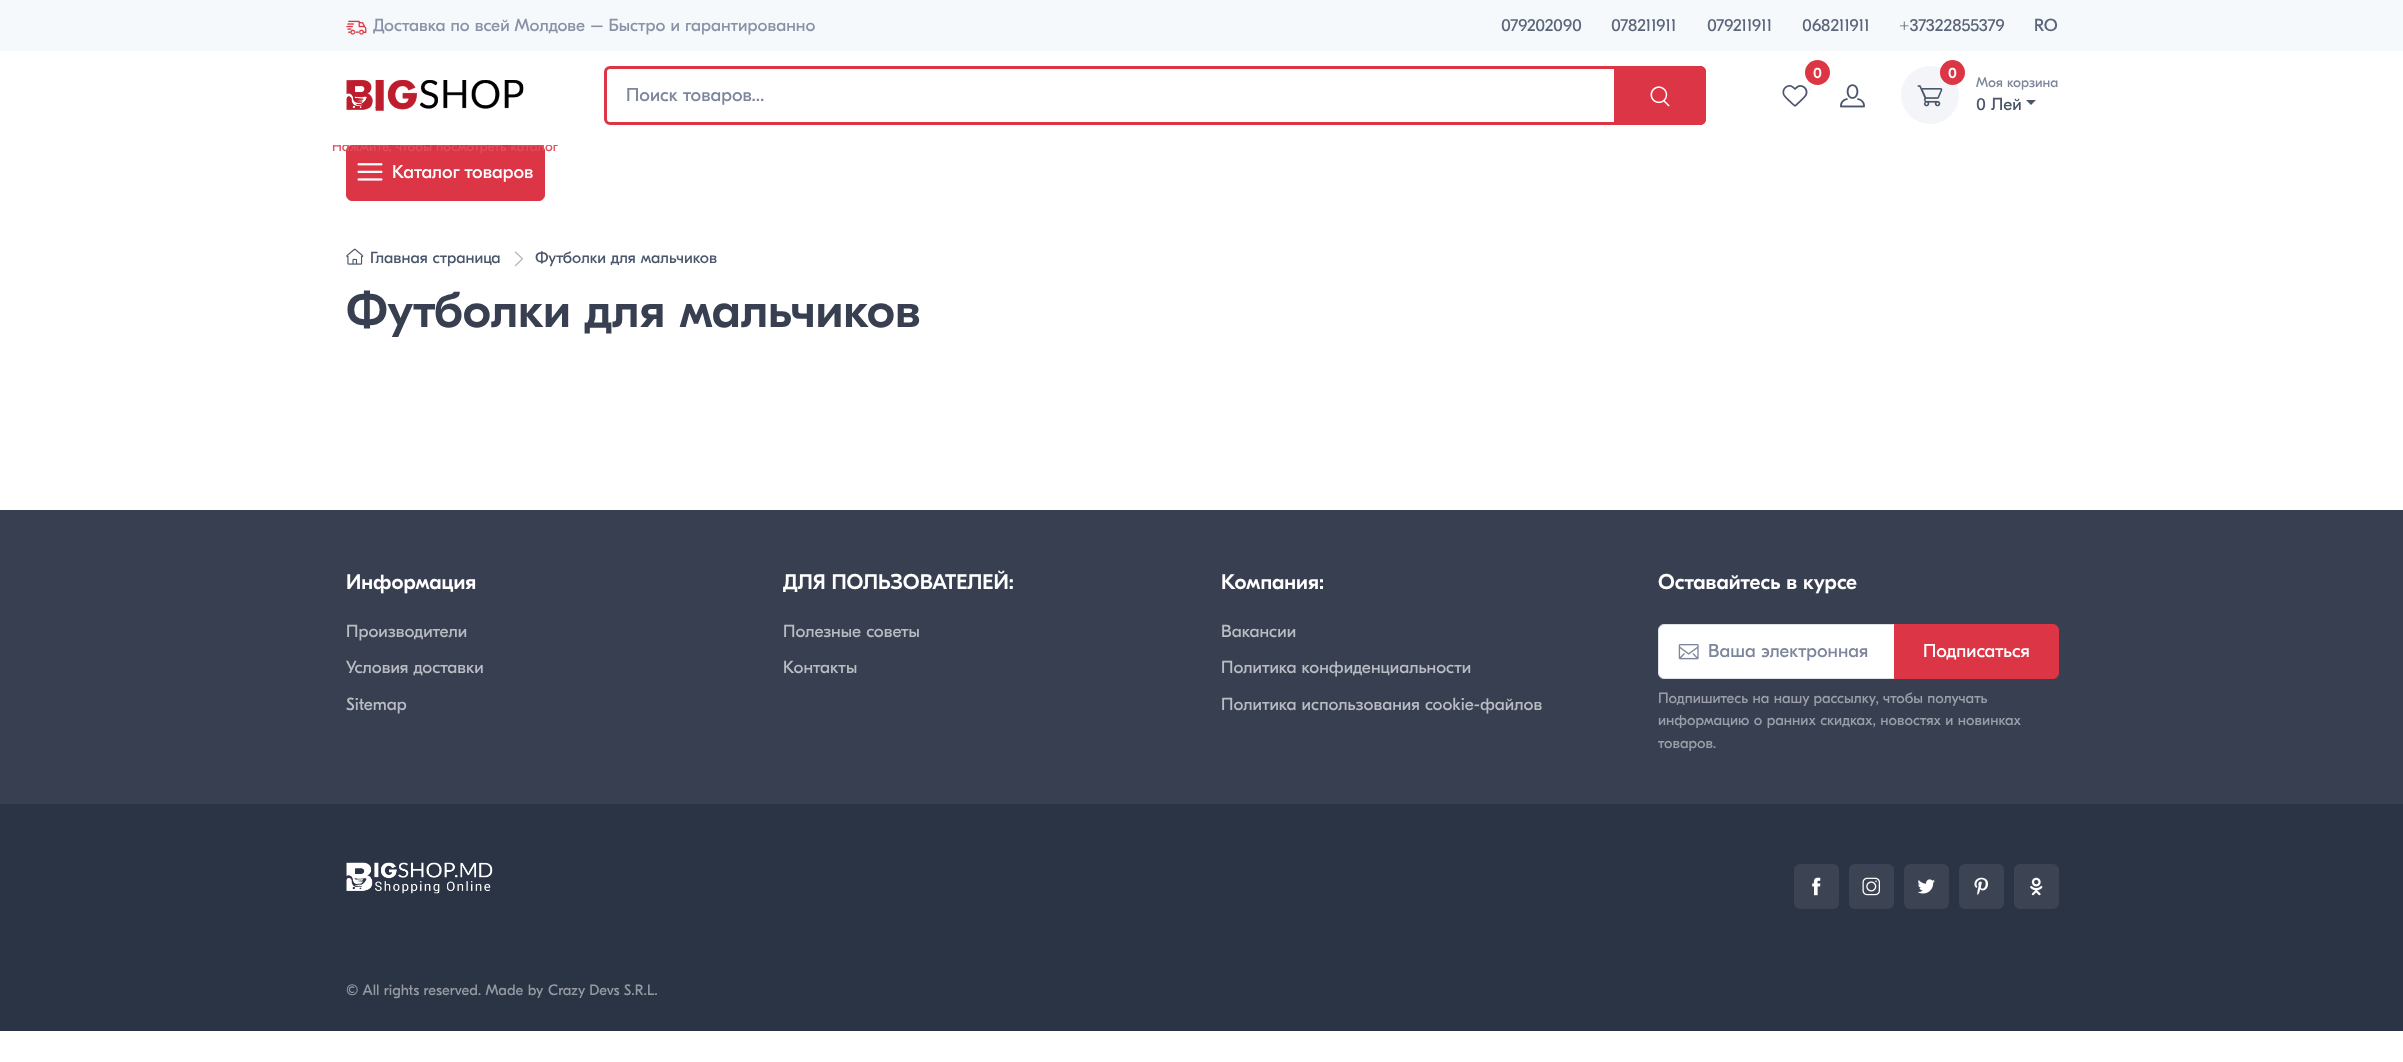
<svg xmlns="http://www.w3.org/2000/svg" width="2403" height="1062">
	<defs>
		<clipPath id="clip1"><rect x="328" y="145" width="1750" height="56" /></clipPath>
	</defs>
	<rect width="100%" height="100%" fill="#FFFFFF" />
	<rect x="0" y="0" width="2403" height="51" fill="#F6F9FC" />
	<image x="346" y="20" width="21" height="15" href="assets/img1.png" />
	<text x="373" y="31" font-family="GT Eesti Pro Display" font-size="17.5" fill="#8992A6">Доставка по всей Молдове – Быстро и гарантированно</text>
	<g font-family="GT Eesti Pro Display" font-size="17.5" fill="#5C667A">
		<text x="1501" y="31">079202090</text>
		<text x="1611" y="31">078211911</text>
		<text x="1707" y="31">079211911</text>
		<text x="1802" y="31">068211911</text>
		<text x="1899" y="31">+37322855379</text>
		<text x="2034" y="31">RO</text>
	</g>
	<image x="346" y="80" width="178" height="31" href="assets/img2.png" />
	<rect x="605.5" y="67.5" width="1099" height="56" rx="4.5" fill="none" stroke="#DC3545" stroke-width="3" />
	<text x="626" y="101" font-family="GT Eesti Pro Display" font-size="18.75" fill="#7D879C">Поиск товаров...</text>
	<path d="M1614 66H1700C1703.5 66 1706 68.5 1706 72V119C1706 122.5 1703.5 125 1700 125H1614Z" fill="#DC3545" />
	<image x="1650" y="86" width="20" height="21" href="assets/img3.png" />
	<circle cx="1817.5" cy="72.5" r="12.5" fill="#DC3545" />
	<text x="1813" y="78" font-family="GT Eesti Pro Display" font-size="15" font-weight="500" fill="#FFFFFF">0</text>
	<image x="1782" y="85" width="26" height="22" href="assets/img4.png" />
	<image x="1840" y="84" width="25" height="24" href="assets/img5.png" />
	<circle cx="1930" cy="95" r="29" fill="#F3F5F9" />
	<circle cx="1952.5" cy="72.5" r="12.5" fill="#DC3545" />
	<text x="1948" y="78" font-family="GT Eesti Pro Display" font-size="15" font-weight="500" fill="#FFFFFF">0</text>
	<image x="1917" y="85" width="26" height="22" href="assets/img6.png" />
	<text x="1976" y="87" font-family="GT Eesti Pro Display" font-size="14" fill="#7D879C">Моя корзина</text>
	<text x="1976" y="110" font-family="GT Eesti Pro Display" font-size="17.5" fill="#4B566B">0 Лей</text>
	<path d="M2026 100H2036L2031 105Z" fill="#4B566B" />
	<rect x="346.5" y="145.5" width="198" height="55" rx="5.5" fill="#DC3545" stroke="#DC3545" />
	<g clip-path="url(#clip1)">
		<text x="332" y="151" font-family="GT Eesti Pro Display" font-size="13.75" fill="#E14F5D">Нажмите, чтобы посмотреть каталог</text>
	</g>
	<image x="357" y="163" width="26" height="18" href="assets/img7.png" />
	<text x="392" y="178" font-family="GT Eesti Pro Display" font-size="18.75" fill="#FFFFFF">Каталог товаров</text>
	<image x="346" y="248" width="18" height="17" href="assets/img8.png" />
	<text x="370" y="263" font-family="GT Eesti Pro Display" font-size="16.25" fill="#4B566B">Главная страница</text>
	<image x="515" y="251" width="8" height="16" href="assets/img9.png" />
	<text x="535" y="263" font-family="GT Eesti Pro Display" font-size="16.25" fill="#4B566B">Футболки для мальчиков</text>
	<text x="346" y="327" font-family="GT Eesti Pro Display" font-size="50" font-weight="500" fill="#373F50">Футболки для мальчиков</text>
	<rect x="0" y="510" width="2403" height="294" fill="#373F50" />
	<text x="346" y="589" font-family="GT Eesti Pro Display" font-size="21.25" font-weight="500" fill="#FFFFFF">Информация</text>
	<g font-family="GT Eesti Pro Display" font-size="17.5" fill="#B9BCC2">
		<text x="346" y="637">Производители</text>
		<text x="346" y="673">Условия доставки</text>
		<text x="346" y="710">Sitemap</text>
	</g>
	<text x="783" y="589" font-family="GT Eesti Pro Display" font-size="21.25" font-weight="500" fill="#FFFFFF">ДЛЯ ПОЛЬЗОВАТЕЛЕЙ:</text>
	<g font-family="GT Eesti Pro Display" font-size="17.5" fill="#B9BCC2">
		<text x="783" y="637">Полезные советы</text>
		<text x="783" y="673">Контакты</text>
	</g>
	<text x="1221" y="589" font-family="GT Eesti Pro Display" font-size="21.25" font-weight="500" fill="#FFFFFF">Компания:</text>
	<g font-family="GT Eesti Pro Display" font-size="17.5" fill="#B9BCC2">
		<text x="1221" y="637">Вакансии</text>
		<text x="1221" y="673">Политика конфиденциальности</text>
		<text x="1221" y="710">Политика использования cookie-файлов</text>
	</g>
	<text x="1658" y="589" font-family="GT Eesti Pro Display" font-size="21.25" font-weight="500" fill="#FFFFFF">Оставайтесь в курсе</text>
	<path d="M1664 624.5H1894.5V678.5H1664C1661 678.5 1658.5 676 1658.5 673V630C1658.5 627 1661 624.5 1664 624.5Z" fill="#FFFFFF" stroke="#DAE1E7" />
	<image x="1678" y="644" width="21" height="16" href="assets/img10.png" />
	<text x="1708" y="657" font-family="GT Eesti Pro Display" font-size="18.75" fill="#7D879C">Ваша электронная</text>
	<path d="M1894.5 624.5H2053C2056 624.5 2058.5 627 2058.5 630V673C2058.5 676 2056 678.5 2053 678.5H1894.5Z" fill="#DC3545" stroke="#DC3545" />
	<text x="1923" y="657" font-family="GT Eesti Pro Display" font-size="18.75" fill="#FFFFFF">Подписаться</text>
	<g font-family="GT Eesti Pro Display" font-size="15" fill="#9B9FA8">
		<text x="1658" y="703">Подпишитесь на нашу рассылку, чтобы получать</text>
		<text x="1658" y="725">информацию о ранних скидках, новостях и новинках</text>
		<text x="1658" y="748">товаров.</text>
	</g>
	<rect x="0" y="804" width="2403" height="227" fill="#2B3445" />
	<image x="346" y="862" width="147" height="32" href="assets/img11.png" />
	<rect x="1794" y="864" width="45" height="45" rx="6" fill="#3C4454" />
	<image x="1812" y="877" width="9" height="19" href="assets/img12.png" />
	<rect x="1849" y="864" width="45" height="45" rx="6" fill="#3C4454" />
	<image x="1862" y="877" width="18" height="19" href="assets/img13.png" />
	<rect x="1904" y="864" width="45" height="45" rx="6" fill="#3C4454" />
	<image x="1917" y="879" width="18" height="15" href="assets/img14.png" />
	<rect x="1959" y="864" width="45" height="45" rx="6" fill="#3C4454" />
	<image x="1974" y="877" width="14" height="18" href="assets/img15.png" />
	<rect x="2014" y="864" width="45" height="45" rx="6" fill="#3C4454" />
	<image x="2030" y="877" width="13" height="19" href="assets/img16.png" />
	<g font-family="GT Eesti Pro Display" font-size="15" fill="#959AA2">
		<text x="346" y="995">© All rights reserved. Made by</text>
		<text x="548" y="995">Crazy Devs S.R.L.</text>
	</g>
</svg>
